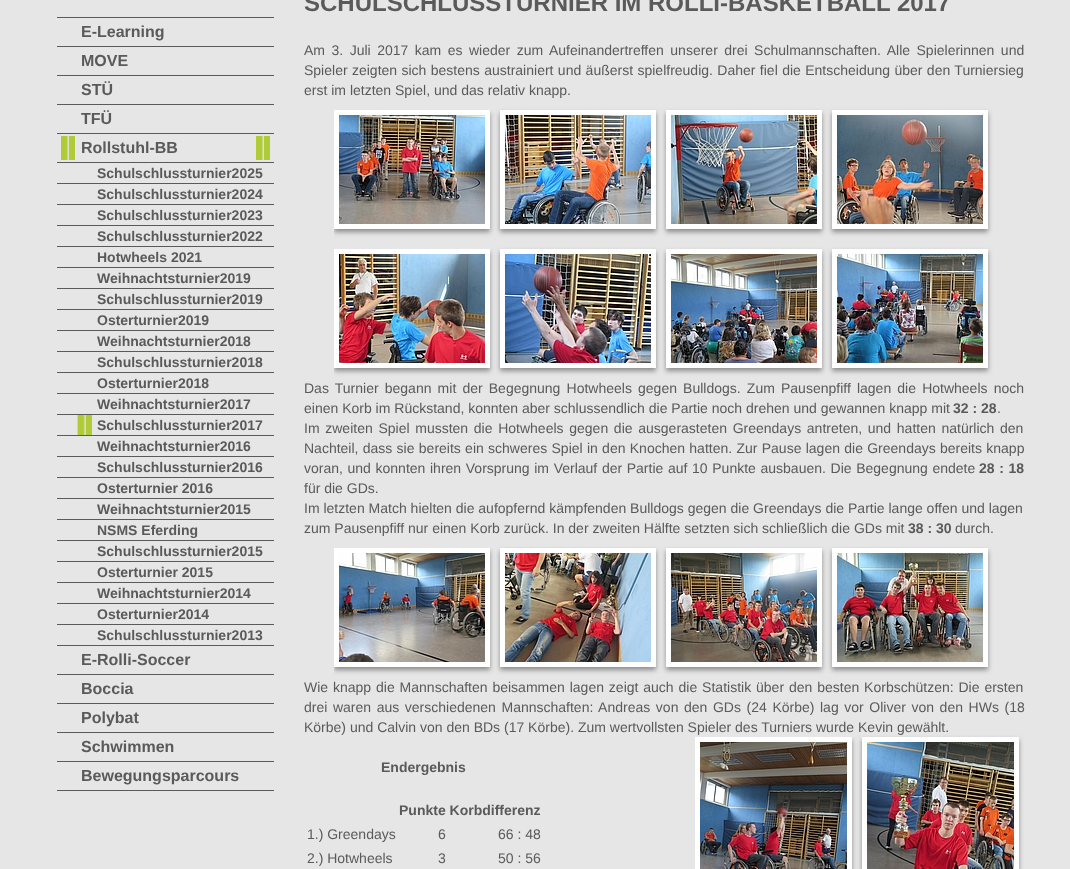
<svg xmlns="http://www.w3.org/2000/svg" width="1070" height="869">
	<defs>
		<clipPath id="clip1"><rect x="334" y="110" width="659" height="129" /></clipPath>
		<clipPath id="clip2"><rect x="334" y="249" width="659" height="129" /></clipPath>
		<clipPath id="clip3"><rect x="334" y="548" width="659" height="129" /></clipPath>
		<clipPath id="clip4"><rect x="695" y="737" width="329" height="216" /></clipPath>
	</defs>
	<rect width="100%" height="100%" fill="#E6E6E6" />
	<rect x="57" y="17" width="217" height="1" fill="#5A5A5A" />
	<rect x="57" y="46" width="217" height="1" fill="#5A5A5A" />
	<text x="81" y="37" font-family="Liberation Sans" font-size="16" font-weight="700" fill="#5A5A5A">E-Learning</text>
	<rect x="57" y="75" width="217" height="1" fill="#5A5A5A" />
	<text x="81" y="66" font-family="Liberation Sans" font-size="16" font-weight="700" fill="#5A5A5A">MOVE</text>
	<rect x="57" y="104" width="217" height="1" fill="#5A5A5A" />
	<text x="81" y="95" font-family="Liberation Sans" font-size="16" font-weight="700" fill="#5A5A5A">STÜ</text>
	<rect x="57" y="133" width="217" height="1" fill="#5A5A5A" />
	<text x="81" y="124" font-family="Liberation Sans" font-size="16" font-weight="700" fill="#5A5A5A">TFÜ</text>
	<image x="61" y="136" width="209" height="24" href="assets/img1.png" />
	<rect x="57" y="162" width="217" height="1" fill="#5A5A5A" />
	<text x="81" y="153" font-family="Liberation Sans" font-size="16" font-weight="700" fill="#5A5A5A">Rollstuhl-BB</text>
	<rect x="57" y="183" width="217" height="1" fill="#5A5A5A" />
	<text x="97" y="178" font-family="Liberation Sans" font-size="14" font-weight="700" fill="#5A5A5A">Schulschlussturnier2025</text>
	<rect x="57" y="204" width="217" height="1" fill="#5A5A5A" />
	<text x="97" y="199" font-family="Liberation Sans" font-size="14" font-weight="700" fill="#5A5A5A">Schulschlussturnier2024</text>
	<rect x="57" y="225" width="217" height="1" fill="#5A5A5A" />
	<text x="97" y="220" font-family="Liberation Sans" font-size="14" font-weight="700" fill="#5A5A5A">Schulschlussturnier2023</text>
	<rect x="57" y="246" width="217" height="1" fill="#5A5A5A" />
	<text x="97" y="241" font-family="Liberation Sans" font-size="14" font-weight="700" fill="#5A5A5A">Schulschlussturnier2022</text>
	<rect x="57" y="267" width="217" height="1" fill="#5A5A5A" />
	<text x="97" y="262" font-family="Liberation Sans" font-size="14" font-weight="700" fill="#5A5A5A">Hotwheels 2021</text>
	<rect x="57" y="288" width="217" height="1" fill="#5A5A5A" />
	<text x="97" y="283" font-family="Liberation Sans" font-size="14" font-weight="700" fill="#5A5A5A">Weihnachtsturnier2019</text>
	<rect x="57" y="309" width="217" height="1" fill="#5A5A5A" />
	<text x="97" y="304" font-family="Liberation Sans" font-size="14" font-weight="700" fill="#5A5A5A">Schulschlussturnier2019</text>
	<rect x="57" y="330" width="217" height="1" fill="#5A5A5A" />
	<text x="97" y="325" font-family="Liberation Sans" font-size="14" font-weight="700" fill="#5A5A5A">Osterturnier2019</text>
	<rect x="57" y="351" width="217" height="1" fill="#5A5A5A" />
	<text x="97" y="346" font-family="Liberation Sans" font-size="14" font-weight="700" fill="#5A5A5A">Weihnachtsturnier2018</text>
	<rect x="57" y="372" width="217" height="1" fill="#5A5A5A" />
	<text x="97" y="367" font-family="Liberation Sans" font-size="14" font-weight="700" fill="#5A5A5A">Schulschlussturnier2018</text>
	<rect x="57" y="393" width="217" height="1" fill="#5A5A5A" />
	<text x="97" y="388" font-family="Liberation Sans" font-size="14" font-weight="700" fill="#5A5A5A">Osterturnier2018</text>
	<rect x="57" y="414" width="217" height="1" fill="#5A5A5A" />
	<text x="97" y="409" font-family="Liberation Sans" font-size="14" font-weight="700" fill="#5A5A5A">Weihnachtsturnier2017</text>
	<image x="77" y="415" width="15" height="20" href="assets/img2.png" />
	<rect x="57" y="435" width="217" height="1" fill="#5A5A5A" />
	<text x="97" y="430" font-family="Liberation Sans" font-size="14" font-weight="700" fill="#5A5A5A">Schulschlussturnier2017</text>
	<rect x="57" y="456" width="217" height="1" fill="#5A5A5A" />
	<text x="97" y="451" font-family="Liberation Sans" font-size="14" font-weight="700" fill="#5A5A5A">Weihnachtsturnier2016</text>
	<rect x="57" y="477" width="217" height="1" fill="#5A5A5A" />
	<text x="97" y="472" font-family="Liberation Sans" font-size="14" font-weight="700" fill="#5A5A5A">Schulschlussturnier2016</text>
	<rect x="57" y="498" width="217" height="1" fill="#5A5A5A" />
	<text x="97" y="493" font-family="Liberation Sans" font-size="14" font-weight="700" fill="#5A5A5A">Osterturnier 2016</text>
	<rect x="57" y="519" width="217" height="1" fill="#5A5A5A" />
	<text x="97" y="514" font-family="Liberation Sans" font-size="14" font-weight="700" fill="#5A5A5A">Weihnachtsturnier2015</text>
	<rect x="57" y="540" width="217" height="1" fill="#5A5A5A" />
	<text x="97" y="535" font-family="Liberation Sans" font-size="14" font-weight="700" fill="#5A5A5A">NSMS Eferding</text>
	<rect x="57" y="561" width="217" height="1" fill="#5A5A5A" />
	<text x="97" y="556" font-family="Liberation Sans" font-size="14" font-weight="700" fill="#5A5A5A">Schulschlussturnier2015</text>
	<rect x="57" y="582" width="217" height="1" fill="#5A5A5A" />
	<text x="97" y="577" font-family="Liberation Sans" font-size="14" font-weight="700" fill="#5A5A5A">Osterturnier 2015</text>
	<rect x="57" y="603" width="217" height="1" fill="#5A5A5A" />
	<text x="97" y="598" font-family="Liberation Sans" font-size="14" font-weight="700" fill="#5A5A5A">Weihnachtsturnier2014</text>
	<rect x="57" y="624" width="217" height="1" fill="#5A5A5A" />
	<text x="97" y="619" font-family="Liberation Sans" font-size="14" font-weight="700" fill="#5A5A5A">Osterturnier2014</text>
	<rect x="57" y="645" width="217" height="1" fill="#5A5A5A" />
	<text x="97" y="640" font-family="Liberation Sans" font-size="14" font-weight="700" fill="#5A5A5A">Schulschlussturnier2013</text>
	<rect x="57" y="674" width="217" height="1" fill="#5A5A5A" />
	<text x="81" y="665" font-family="Liberation Sans" font-size="16" font-weight="700" fill="#5A5A5A">E-Rolli-Soccer</text>
	<rect x="57" y="703" width="217" height="1" fill="#5A5A5A" />
	<text x="81" y="694" font-family="Liberation Sans" font-size="16" font-weight="700" fill="#5A5A5A">Boccia</text>
	<rect x="57" y="732" width="217" height="1" fill="#5A5A5A" />
	<text x="81" y="723" font-family="Liberation Sans" font-size="16" font-weight="700" fill="#5A5A5A">Polybat</text>
	<rect x="57" y="761" width="217" height="1" fill="#5A5A5A" />
	<text x="81" y="752" font-family="Liberation Sans" font-size="16" font-weight="700" fill="#5A5A5A">Schwimmen</text>
	<rect x="57" y="790" width="217" height="1" fill="#5A5A5A" />
	<text x="81" y="781" font-family="Liberation Sans" font-size="16" font-weight="700" fill="#5A5A5A">Bewegungsparcours</text>
	<text x="304" y="11" font-family="Liberation Sans" font-size="24" font-weight="700" fill="#5A5A5A">SCHULSCHLUSSTURNIER IM ROLLI-BASKETBALL 2017</text>
	<g font-family="Liberation Sans" font-size="14" fill="#5A5A5A">
		<text x="304" y="55" word-spacing="2.6">Am 3. Juli 2017 kam es wieder zum Aufeinandertreffen unserer drei Schulmannschaften. Alle Spielerinnen und</text>
		<text x="304" y="75" word-spacing="0.5">Spieler zeigten sich bestens austrainiert und äußerst spielfreudig. Daher fiel die Entscheidung über den Turniersieg</text>
		<text x="304" y="95">erst im letzten Spiel, und das relativ knapp.</text>
	</g>
	<g clip-path="url(#clip1)">
		<rect x="334" y="113" width="156" height="119" fill="#323232" fill-opacity="0.5" filter="blur(2.5px)" />
	</g>
	<rect x="334" y="110" width="156" height="119" fill="#FFFFFF" />
	<image x="339" y="115" width="146" height="109" href="assets/img3.png" />
	<rect x="500" y="113" width="156" height="119" fill="#323232" fill-opacity="0.5" filter="blur(2.5px)" />
	<rect x="500" y="110" width="156" height="119" fill="#FFFFFF" />
	<image x="505" y="115" width="146" height="109" href="assets/img4.png" />
	<rect x="666" y="113" width="156" height="119" fill="#323232" fill-opacity="0.5" filter="blur(2.5px)" />
	<rect x="666" y="110" width="156" height="119" fill="#FFFFFF" />
	<image x="671" y="115" width="146" height="109" href="assets/img5.png" />
	<rect x="832" y="113" width="156" height="119" fill="#323232" fill-opacity="0.5" filter="blur(2.5px)" />
	<rect x="832" y="110" width="156" height="119" fill="#FFFFFF" />
	<image x="837" y="115" width="146" height="109" href="assets/img6.png" />
	<g clip-path="url(#clip2)">
		<rect x="334" y="252" width="156" height="119" fill="#323232" fill-opacity="0.5" filter="blur(2.5px)" />
	</g>
	<rect x="334" y="249" width="156" height="119" fill="#FFFFFF" />
	<image x="339" y="254" width="146" height="109" href="assets/img7.png" />
	<rect x="500" y="252" width="156" height="119" fill="#323232" fill-opacity="0.5" filter="blur(2.5px)" />
	<rect x="500" y="249" width="156" height="119" fill="#FFFFFF" />
	<image x="505" y="254" width="146" height="109" href="assets/img8.png" />
	<rect x="666" y="252" width="156" height="119" fill="#323232" fill-opacity="0.5" filter="blur(2.5px)" />
	<rect x="666" y="249" width="156" height="119" fill="#FFFFFF" />
	<image x="671" y="254" width="146" height="109" href="assets/img9.png" />
	<rect x="832" y="252" width="156" height="119" fill="#323232" fill-opacity="0.5" filter="blur(2.5px)" />
	<rect x="832" y="249" width="156" height="119" fill="#FFFFFF" />
	<image x="837" y="254" width="146" height="109" href="assets/img10.png" />
	<g font-family="Liberation Sans" font-size="14" fill="#5A5A5A">
		<text x="304" y="393" word-spacing="2.25">Das Turnier begann mit der Begegnung Hotwheels gegen Bulldogs. Zum Pausenpfiff lagen die Hotwheels noch</text>
		<text x="304" y="413">einen Korb im Rückstand, konnten aber schlussendlich die Partie noch drehen und gewannen knapp mit</text>
	</g>
	<text x="953" y="413" font-family="Liberation Sans" font-size="14" font-weight="700" fill="#5A5A5A">32 : 28</text>
	<g font-family="Liberation Sans" font-size="14" fill="#5A5A5A">
		<text x="997" y="413">.</text>
		<text x="304" y="433" word-spacing="1.8">Im zweiten Spiel mussten die Hotwheels gegen die ausgerasteten Greendays antreten, und hatten natürlich den</text>
		<text x="304" y="453" word-spacing="0.4">Nachteil, dass sie bereits ein schweres Spiel in den Knochen hatten. Zur Pause lagen die Greendays bereits knapp</text>
		<text x="304" y="473" word-spacing="0.75">voran, und konnten ihren Vorsprung im Verlauf der Partie auf 10 Punkte ausbauen. Die Begegnung endete</text>
	</g>
	<text x="979" y="473" word-spacing="0.75" font-family="Liberation Sans" font-size="14" font-weight="700" fill="#5A5A5A">28 : 18</text>
	<g font-family="Liberation Sans" font-size="14" fill="#5A5A5A">
		<text x="304" y="493">für die GDs.</text>
		<text x="304" y="513">Im letzten Match hielten die aufopfernd kämpfenden Bulldogs gegen die Greendays die Partie lange offen und lagen</text>
		<text x="304" y="533">zum Pausenpfiff nur einen Korb zurück. In der zweiten Hälfte setzten sich schließlich die GDs mit</text>
	</g>
	<text x="908" y="533" font-family="Liberation Sans" font-size="14" font-weight="700" fill="#5A5A5A">38 : 30</text>
	<text x="955" y="533" font-family="Liberation Sans" font-size="14" fill="#5A5A5A">durch.</text>
	<g clip-path="url(#clip3)">
		<rect x="334" y="551" width="156" height="119" fill="#323232" fill-opacity="0.5" filter="blur(2.5px)" />
	</g>
	<rect x="334" y="548" width="156" height="119" fill="#FFFFFF" />
	<image x="339" y="553" width="146" height="109" href="assets/img11.png" />
	<rect x="500" y="551" width="156" height="119" fill="#323232" fill-opacity="0.5" filter="blur(2.5px)" />
	<rect x="500" y="548" width="156" height="119" fill="#FFFFFF" />
	<image x="505" y="553" width="146" height="109" href="assets/img12.png" />
	<rect x="666" y="551" width="156" height="119" fill="#323232" fill-opacity="0.5" filter="blur(2.5px)" />
	<rect x="666" y="548" width="156" height="119" fill="#FFFFFF" />
	<image x="671" y="553" width="146" height="109" href="assets/img13.png" />
	<rect x="832" y="551" width="156" height="119" fill="#323232" fill-opacity="0.5" filter="blur(2.5px)" />
	<rect x="832" y="548" width="156" height="119" fill="#FFFFFF" />
	<image x="837" y="553" width="146" height="109" href="assets/img14.png" />
	<g font-family="Liberation Sans" font-size="14" fill="#5A5A5A">
		<text x="304" y="692" word-spacing="1">Wie knapp die Mannschaften beisammen lagen zeigt auch die Statistik über den besten Korbschützen: Die ersten</text>
		<text x="304" y="712" word-spacing="1.7">drei waren aus verschiedenen Mannschaften: Andreas von den GDs (24 Körbe) lag vor Oliver von den HWs (18</text>
		<text x="304" y="732">Körbe) und Calvin von den BDs (17 Körbe). Zum wertvollsten Spieler des Turniers wurde Kevin gewählt.</text>
	</g>
	<g font-family="Liberation Sans" font-size="14" font-weight="700" fill="#5A5A5A">
		<text x="381" y="772">Endergebnis</text>
		<text x="399" y="815">Punkte Korbdifferenz</text>
	</g>
	<g font-family="Liberation Sans" font-size="14" fill="#5A5A5A">
		<text x="307" y="839">1.) Greendays</text>
		<text x="438" y="839">6</text>
		<text x="498" y="839">66 : 48</text>
		<text x="307" y="863">2.) Hotwheels</text>
		<text x="438" y="863">3</text>
		<text x="498" y="863">50 : 56</text>
	</g>
	<g clip-path="url(#clip4)">
		<rect x="695" y="740" width="157" height="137" fill="#323232" fill-opacity="0.5" filter="blur(2.5px)" />
	</g>
	<rect x="695" y="737" width="157" height="132" fill="#FFFFFF" />
	<image x="700" y="742" width="147" height="127" href="assets/img15.png" />
	<rect x="862" y="740" width="157" height="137" fill="#323232" fill-opacity="0.5" filter="blur(2.5px)" />
	<rect x="862" y="737" width="157" height="132" fill="#FFFFFF" />
	<image x="867" y="742" width="147" height="127" href="assets/img16.png" />
</svg>
